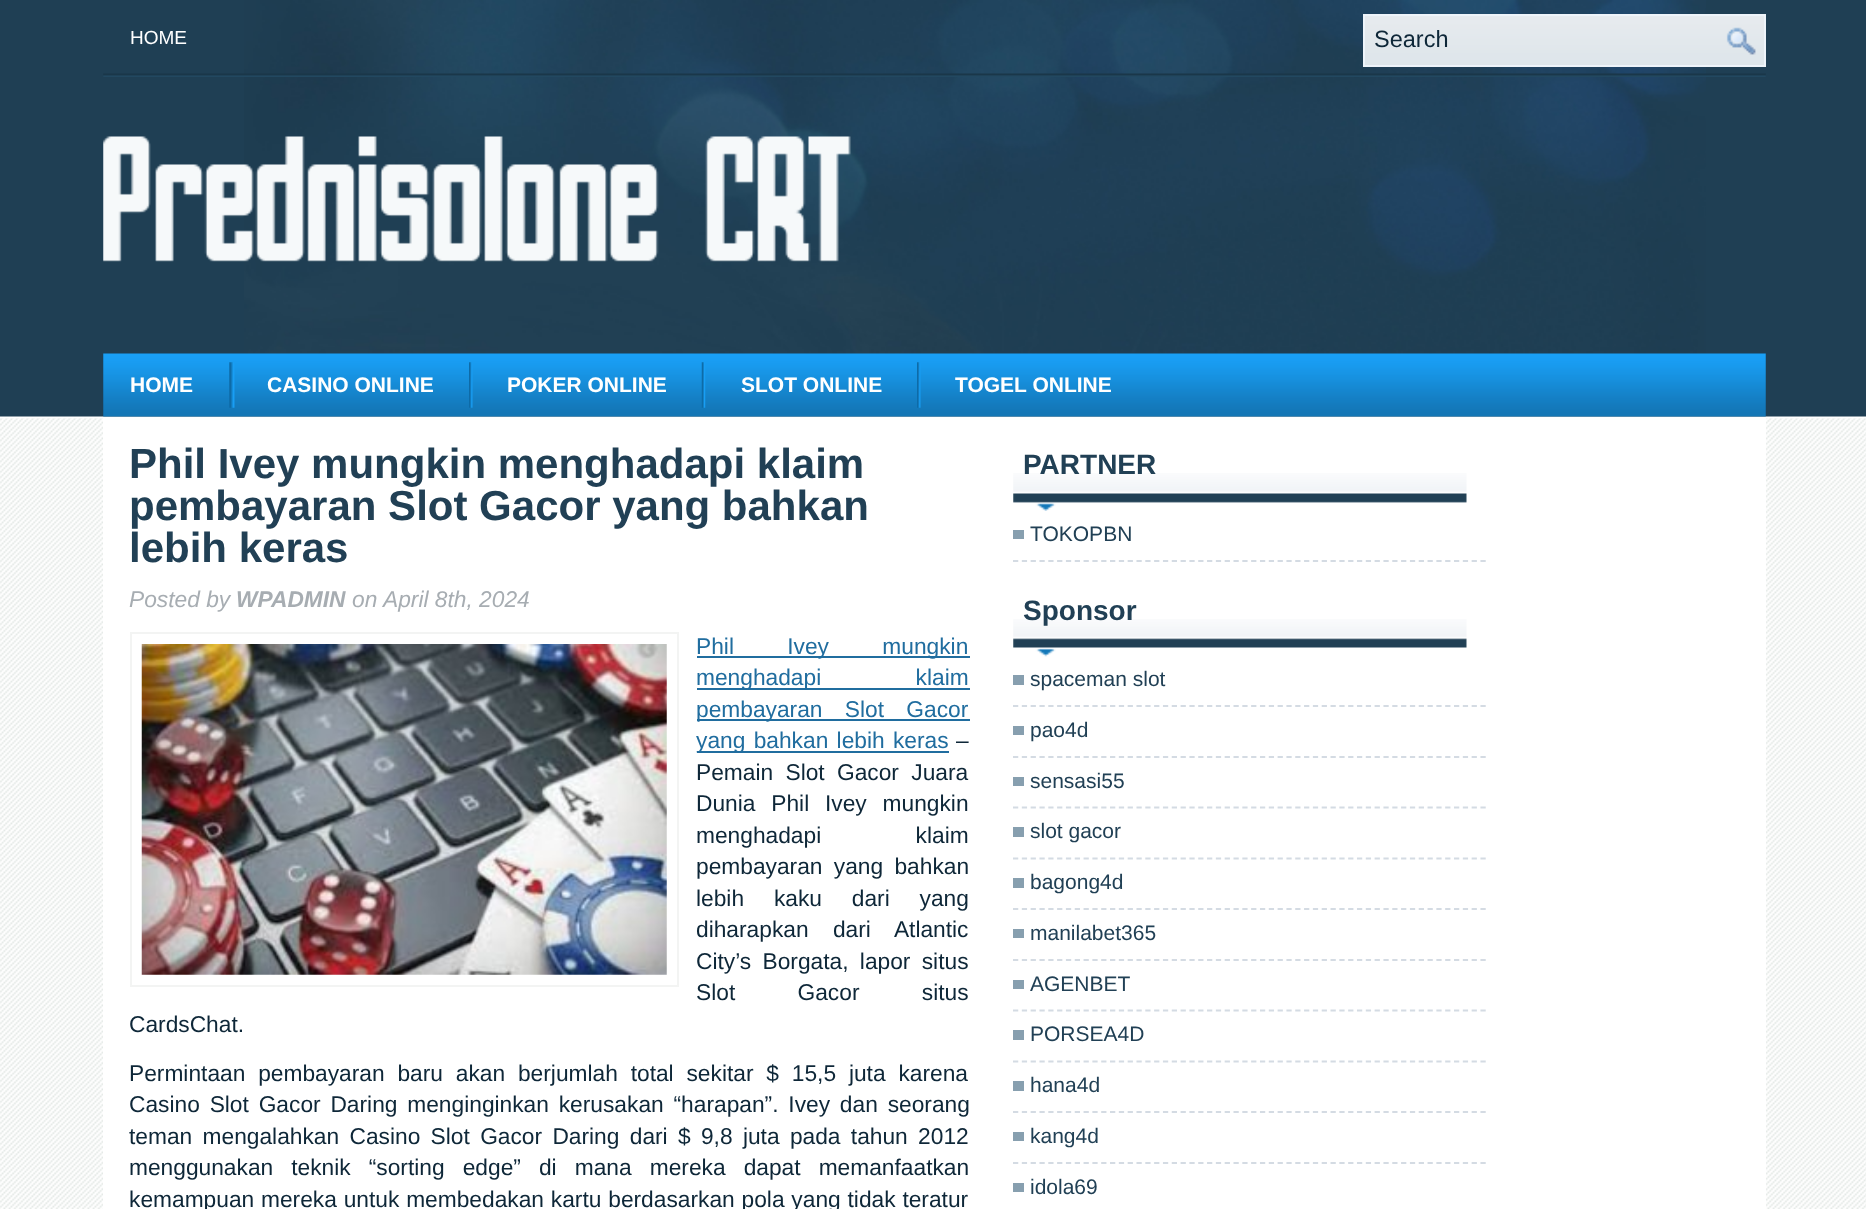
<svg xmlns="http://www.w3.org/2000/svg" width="1866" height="1209">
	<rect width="100%" height="100%" fill="#FFFFFF" />
	<image x="0" y="418" width="1866" height="791" href="assets/img1.png" />
	<image x="0" y="0" width="1866" height="419" href="assets/img2.png" />
	<image x="244" y="0" width="1462" height="354" href="assets/img3.png" />
	<text x="130" y="44" font-family="Liberation Sans" font-size="19" fill="#FFFFFF">HOME</text>
	<image x="1365" y="16" width="399" height="49" href="assets/img4.png" />
	<rect x="1364" y="15" width="401" height="51" fill="none" stroke="#EEF4FA" stroke-width="2" />
	<text x="1374" y="47" font-family="Liberation Sans" font-size="23.5" fill="#0E2738">Search</text>
	<image x="1726" y="27" width="30" height="28" href="assets/img5.png" />
	<image x="103" y="73" width="1663" height="4" href="assets/img6.png" />
	<image x="103" y="136" width="748" height="126" href="assets/img7.png" />
	<image x="103" y="353" width="1663" height="64" href="assets/img8.png" />
	<text x="130" y="392" font-family="Liberation Sans" font-size="21" font-weight="700" fill="#FFFFFF">HOME</text>
	<image x="229" y="362" width="6" height="46" href="assets/img9.png" />
	<text x="267" y="392" font-family="Liberation Sans" font-size="21" font-weight="700" fill="#FFFFFF">CASINO ONLINE</text>
	<image x="469" y="362" width="4" height="46" href="assets/img10.png" />
	<text x="507" y="392" font-family="Liberation Sans" font-size="21" font-weight="700" fill="#FFFFFF">POKER ONLINE</text>
	<image x="701" y="362" width="5" height="46" href="assets/img11.png" />
	<text x="741" y="392" font-family="Liberation Sans" font-size="21" font-weight="700" fill="#FFFFFF">SLOT ONLINE</text>
	<image x="917" y="362" width="4" height="46" href="assets/img10.png" />
	<text x="955" y="392" font-family="Liberation Sans" font-size="21" font-weight="700" fill="#FFFFFF">TOGEL ONLINE</text>
	<rect x="103" y="418" width="1663" height="791" fill="#FFFFFF" />
	<g font-family="Liberation Sans" font-size="42" font-weight="700" fill="#214055">
		<text x="129" y="478">Phil Ivey mungkin menghadapi klaim</text>
		<text x="129" y="520">pembayaran Slot Gacor yang bahkan</text>
		<text x="129" y="562">lebih keras</text>
	</g>
	<text x="129" y="607" font-family="Liberation Sans" font-size="22.75" font-style="italic" fill="#A7ADB2">Posted by</text>
	<text x="236" y="607" font-family="Liberation Sans" font-size="22.75" font-weight="700" font-style="italic" fill="#A7ADB2">WPADMIN</text>
	<g font-family="Liberation Sans" font-size="22.75" font-style="italic" fill="#A7ADB2">
		<text x="352" y="607">on</text>
		<text x="383" y="607">April 8th, 2024</text>
	</g>
	<rect x="131" y="633" width="547" height="353" fill="none" stroke="#F3F4F3" stroke-width="2" />
	<image x="141" y="644" width="526" height="331" href="assets/img12.png" />
	<rect x="697" y="656" width="273" height="2" fill="#206D9F" />
	<text x="696" y="654" word-spacing="47" font-family="Liberation Sans" font-size="22.75" fill="#206D9F">Phil Ivey mungkin</text>
	<rect x="697" y="688" width="273" height="2" fill="#206D9F" />
	<text x="696" y="685" word-spacing="88" font-family="Liberation Sans" font-size="22.75" fill="#206D9F">menghadapi klaim</text>
	<rect x="697" y="719" width="273" height="2" fill="#206D9F" />
	<text x="696" y="717" word-spacing="16" font-family="Liberation Sans" font-size="22.75" fill="#206D9F">pembayaran Slot Gacor</text>
	<rect x="697" y="751" width="252" height="2" fill="#206D9F" />
	<text x="696" y="748" word-spacing="2" font-family="Liberation Sans" font-size="22.75" fill="#206D9F">yang bahkan lebih keras</text>
	<g font-family="Liberation Sans" font-size="22.75" fill="#0E2738">
		<text x="956" y="748">–</text>
		<text x="696" y="780" word-spacing="6">Pemain Slot Gacor Juara</text>
		<text x="696" y="811" word-spacing="9.5">Dunia Phil Ivey mungkin</text>
		<text x="696" y="843" word-spacing="88">menghadapi klaim</text>
		<text x="696" y="874" word-spacing="5">pembayaran yang bahkan</text>
		<text x="696" y="906" word-spacing="23.5">lebih kaku dari yang</text>
		<text x="696" y="937" word-spacing="18">diharapkan dari Atlantic</text>
		<text x="696" y="969" word-spacing="5">City’s Borgata, lapor situs</text>
		<text x="696" y="1000" word-spacing="56">Slot Gacor situs</text>
		<text x="129" y="1032">CardsChat.</text>
		<text x="129" y="1081" word-spacing="6.5">Permintaan pembayaran baru akan berjumlah total sekitar $ 15,5 juta karena</text>
		<text x="129" y="1112" word-spacing="3.5">Casino Slot Gacor Daring menginginkan kerusakan “harapan”. Ivey dan seorang</text>
		<text x="129" y="1144" word-spacing="4">teman mengalahkan Casino Slot Gacor Daring dari $ 9,8 juta pada tahun 2012</text>
		<text x="129" y="1175" word-spacing="11.75">menggunakan teknik “sorting edge” di mana mereka dapat memanfaatkan</text>
		<text x="129" y="1207" word-spacing="0.5">kemampuan mereka untuk membedakan kartu berdasarkan pola yang tidak teratur</text>
	</g>
	<image x="1013" y="473" width="454" height="38" href="assets/img13.png" />
	<text x="1023" y="474" font-family="Liberation Sans" font-size="28" font-weight="700" fill="#214055">PARTNER</text>
	<rect x="1013" y="530" width="11" height="9" fill="#879FAF" />
	<path d="M1013 561H1486" fill="none" stroke="#D4DBE3" stroke-width="1.8" stroke-dasharray="5.25 3.57" />
	<text x="1030" y="541" font-family="Liberation Sans" font-size="21" fill="#214055">TOKOPBN</text>
	<image x="1013" y="619" width="454" height="38" href="assets/img14.png" />
	<text x="1023" y="620" font-family="Liberation Sans" font-size="28" font-weight="700" fill="#214055">Sponsor</text>
	<rect x="1013" y="675" width="11" height="10" fill="#879FAF" />
	<path d="M1013 706H1486" fill="none" stroke="#D4DBE3" stroke-width="1.8" stroke-dasharray="5.25 3.57" />
	<text x="1030" y="686" font-family="Liberation Sans" font-size="21" fill="#214055">spaceman slot</text>
	<rect x="1013" y="726" width="11" height="9" fill="#879FAF" />
	<path d="M1013 757H1486" fill="none" stroke="#D4DBE3" stroke-width="1.8" stroke-dasharray="5.25 3.57" />
	<text x="1030" y="737" font-family="Liberation Sans" font-size="21" fill="#214055">pao4d</text>
	<rect x="1013" y="777" width="11" height="9" fill="#879FAF" />
	<path d="M1013 807.5H1486" fill="none" stroke="#D4DBE3" stroke-width="1.8" stroke-dasharray="5.25 3.57" />
	<text x="1030" y="788" font-family="Liberation Sans" font-size="21" fill="#214055">sensasi55</text>
	<rect x="1013" y="827" width="11" height="10" fill="#879FAF" />
	<path d="M1013 858.5H1486" fill="none" stroke="#D4DBE3" stroke-width="1.8" stroke-dasharray="5.25 3.57" />
	<text x="1030" y="838" font-family="Liberation Sans" font-size="21" fill="#214055">slot gacor</text>
	<rect x="1013" y="878" width="11" height="10" fill="#879FAF" />
	<path d="M1013 909H1486" fill="none" stroke="#D4DBE3" stroke-width="1.8" stroke-dasharray="5.25 3.57" />
	<text x="1030" y="889" font-family="Liberation Sans" font-size="21" fill="#214055">bagong4d</text>
	<rect x="1013" y="929" width="11" height="9" fill="#879FAF" />
	<path d="M1013 960H1486" fill="none" stroke="#D4DBE3" stroke-width="1.8" stroke-dasharray="5.25 3.57" />
	<text x="1030" y="940" font-family="Liberation Sans" font-size="21" fill="#214055">manilabet365</text>
	<rect x="1013" y="980" width="11" height="9" fill="#879FAF" />
	<path d="M1013 1010.5H1486" fill="none" stroke="#D4DBE3" stroke-width="1.8" stroke-dasharray="5.25 3.57" />
	<text x="1030" y="991" font-family="Liberation Sans" font-size="21" fill="#214055">AGENBET</text>
	<rect x="1013" y="1030" width="11" height="10" fill="#879FAF" />
	<path d="M1013 1061.5H1486" fill="none" stroke="#D4DBE3" stroke-width="1.8" stroke-dasharray="5.25 3.57" />
	<text x="1030" y="1041" font-family="Liberation Sans" font-size="21" fill="#214055">PORSEA4D</text>
	<rect x="1013" y="1081" width="11" height="10" fill="#879FAF" />
	<path d="M1013 1112H1486" fill="none" stroke="#D4DBE3" stroke-width="1.8" stroke-dasharray="5.25 3.57" />
	<text x="1030" y="1092" font-family="Liberation Sans" font-size="21" fill="#214055">hana4d</text>
	<rect x="1013" y="1132" width="11" height="9" fill="#879FAF" />
	<path d="M1013 1163H1486" fill="none" stroke="#D4DBE3" stroke-width="1.8" stroke-dasharray="5.25 3.57" />
	<text x="1030" y="1143" font-family="Liberation Sans" font-size="21" fill="#214055">kang4d</text>
	<rect x="1013" y="1183" width="11" height="9" fill="#879FAF" />
	<text x="1030" y="1194" font-family="Liberation Sans" font-size="21" fill="#214055">idola69</text>
</svg>
